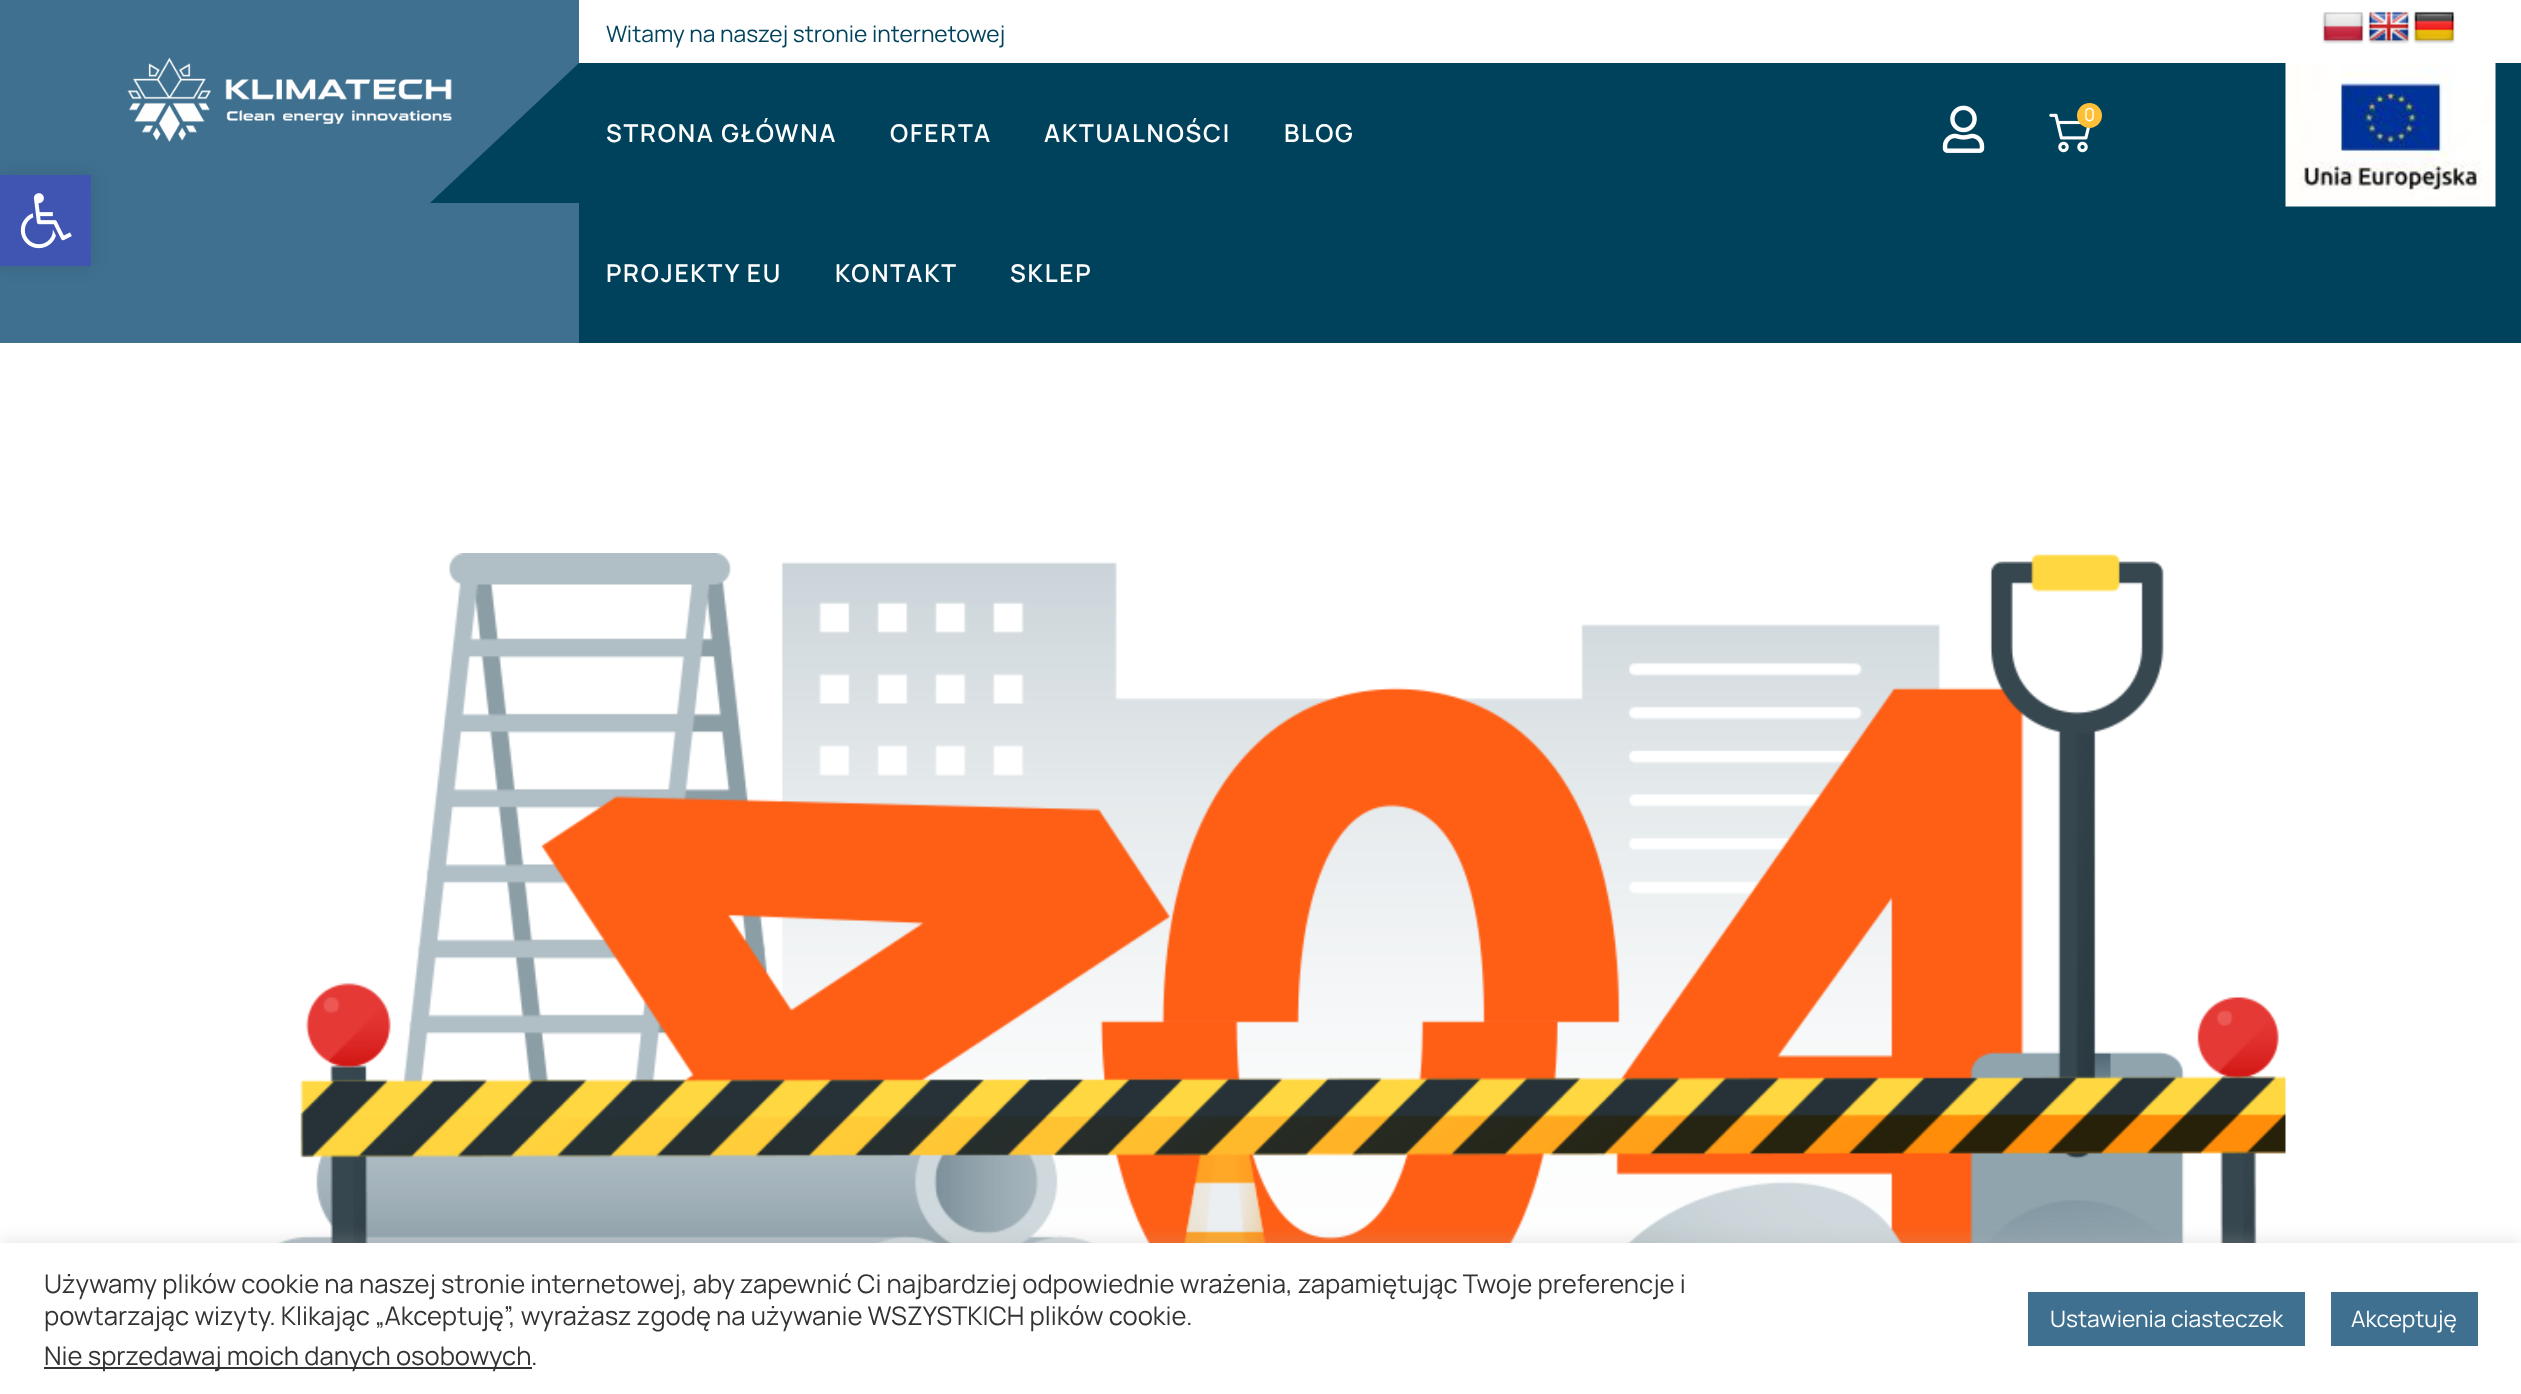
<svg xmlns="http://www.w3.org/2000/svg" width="2521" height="1394">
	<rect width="100%" height="100%" fill="#FFFFFF" />
	<rect x="0" y="0" width="579" height="343" fill="#3F708F" />
	<rect x="0" y="175" width="91" height="91" fill="#000000" fill-opacity="0.1" filter="blur(9px)" />
	<rect x="0" y="175" width="91" height="91" fill="#4054B2" />
	<image x="20" y="193" width="52" height="56" href="assets/img1.png" />
	<image x="127" y="57" width="325" height="85" href="assets/img2.png" />
	<text x="606" y="42" font-family="Manrope" font-size="22.75" fill="#00425B">Witamy na naszej stronie internetowej</text>
	<image x="2322" y="12" width="42" height="32" href="assets/img3.png" />
	<image x="2368" y="11" width="42" height="33" href="assets/img4.png" />
	<image x="2413" y="11" width="42" height="33" href="assets/img5.png" />
	<rect x="579" y="63" width="1942" height="280" fill="#00425B" />
	<path d="M579 203H430L579 63Z" fill="#00425B" />
	<image x="1942" y="105" width="43" height="48" href="assets/img6.png" />
	<image x="2049" y="113" width="42" height="40" href="assets/img7.png" />
	<circle cx="2089.5" cy="115.5" r="12.5" fill="#FFC038" />
	<text x="2084" y="121" font-family="Manrope" font-size="18" fill="#FFFFFF">0</text>
	<image x="2285" y="63" width="211" height="144" href="assets/img8.png" />
	<g font-family="Manrope" font-size="24.5" font-weight="600" letter-spacing="1.75" fill="#FFFFFF">
		<text x="606" y="142">STRONA GŁÓWNA</text>
		<text x="890" y="142">OFERTA</text>
		<text x="1044" y="142">AKTUALNOŚCI</text>
		<text x="1284" y="142">BLOG</text>
		<text x="606" y="282">PROJEKTY EU</text>
		<text x="835" y="282">KONTAKT</text>
		<text x="1010" y="282">SKLEP</text>
	</g>
	<image x="277" y="553" width="2009" height="690" href="assets/img9.png" />
	<rect x="0" y="1241" width="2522" height="152" fill="#ACABAB" fill-opacity="0.3" filter="blur(9px)" />
	<rect x="0" y="1243" width="2521" height="151" fill="#FFFFFF" />
	<g font-family="Manrope" font-size="25.67" fill="#333333">
		<text x="44" y="1293">Używamy plików cookie na naszej stronie internetowej, aby zapewnić Ci najbardziej odpowiednie wrażenia, zapamiętując Twoje preferencje i</text>
		<text x="44" y="1325">powtarzając wizyty. Klikając „Akceptuję”, wyrażasz zgodę na używanie WSZYSTKICH plików cookie.</text>
	</g>
	<rect x="44" y="1367" width="488" height="2" fill="#333333" />
	<g font-family="Manrope" font-size="25.67" fill="#333333">
		<text x="44" y="1365">Nie sprzedawaj moich danych osobowych</text>
		<text x="531" y="1365">.</text>
	</g>
	<rect x="2028" y="1292" width="277" height="54" fill="#3F708F" />
	<text x="2050" y="1327" font-family="Manrope" font-size="22.75" fill="#FFFFFF">Ustawienia ciasteczek</text>
	<rect x="2331" y="1292" width="147" height="54" fill="#3F708F" />
	<text x="2351" y="1327" font-family="Manrope" font-size="22.75" fill="#FFFFFF">Akceptuję</text>
</svg>
